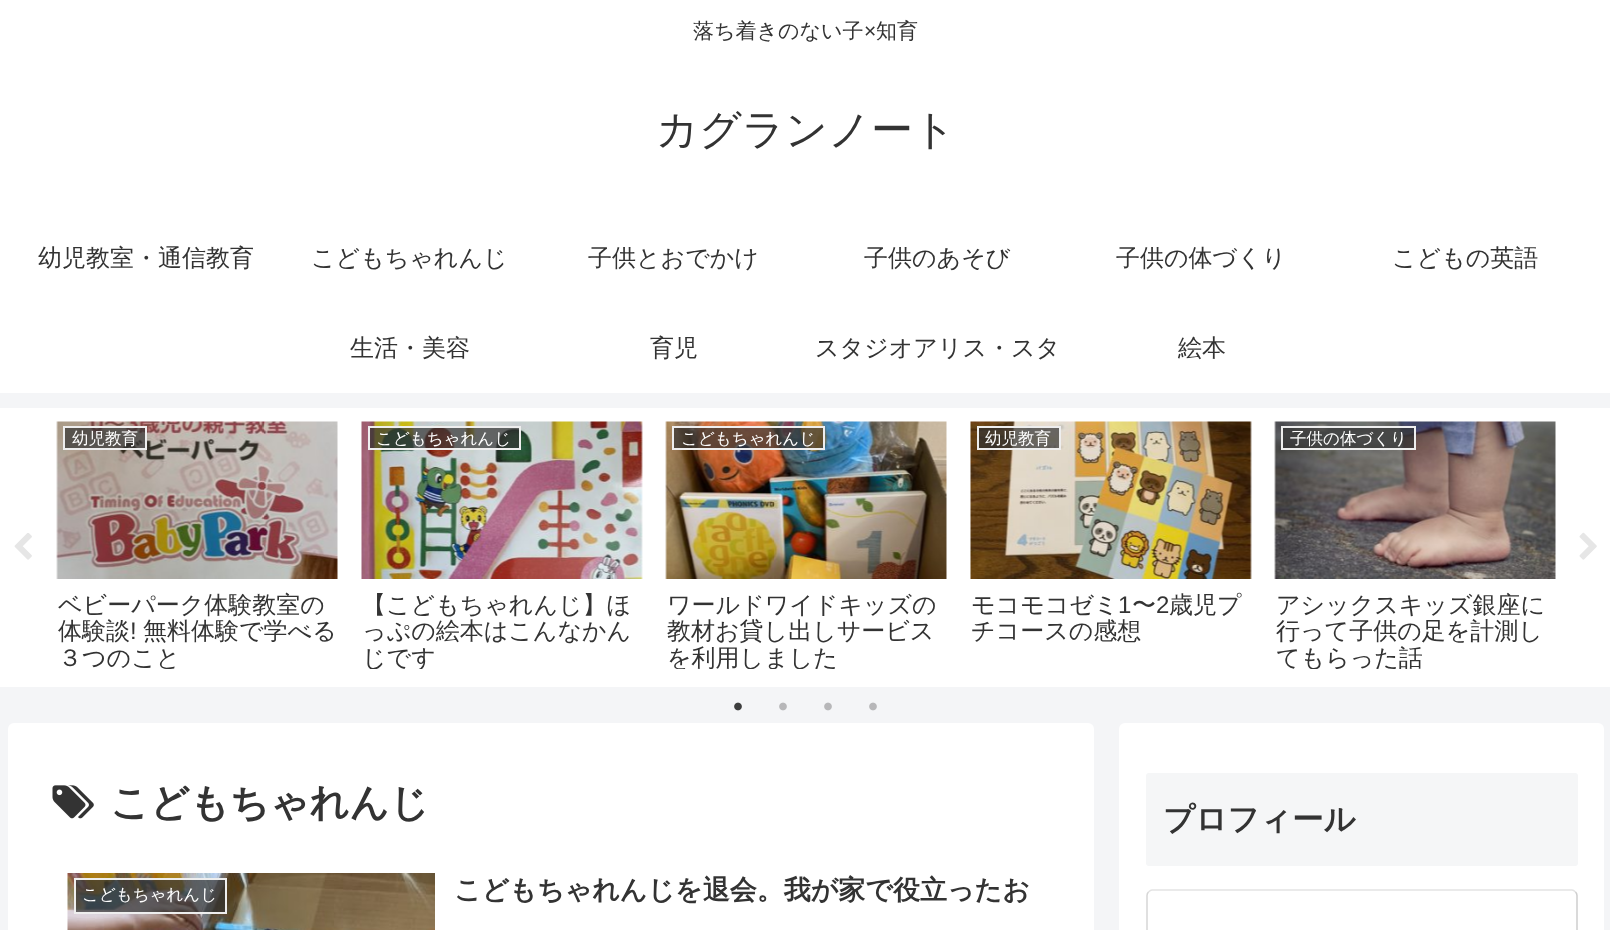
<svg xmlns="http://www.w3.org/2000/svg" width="1610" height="930">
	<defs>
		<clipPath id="clip1"><rect x="57" y="591" width="281" height="78" /></clipPath>
		<clipPath id="clip2"><rect x="362" y="591" width="280" height="78" /></clipPath>
		<clipPath id="clip3"><rect x="666" y="591" width="281" height="78" /></clipPath>
		<clipPath id="clip4"><rect x="1275" y="591" width="281" height="78" /></clipPath>
	</defs>
	<rect width="100%" height="100%" fill="#F4F5F7" />
	<rect x="0" y="0" width="1610" height="393" fill="#FFFFFF" />
	<text x="693" y="38" font-family="WenQuanYi Zen Hei" font-size="21" font-weight="500" fill="#333333">落ち着きのない子</text>
	<text x="864" y="38" font-family="Liberation Sans" font-size="21" fill="#333333">×</text>
	<text x="876" y="38" font-family="WenQuanYi Zen Hei" font-size="21" font-weight="500" fill="#333333">知育</text>
	<text x="656" y="144" font-family="WenQuanYi Zen Hei" font-size="42" font-weight="500" fill="#333333">カグランノート</text>
	<g font-family="WenQuanYi Zen Hei" font-size="24" font-weight="500" fill="#333333">
		<text x="38" y="266">幼児教室・通信教育</text>
		<text x="311" y="266">こどもちゃれんじ</text>
		<text x="588" y="266">子供とおでかけ</text>
		<text x="864" y="266">子供のあそび</text>
		<text x="1116" y="266">子供の体づくり</text>
		<text x="1392" y="266">こどもの英語</text>
		<text x="350" y="356">生活・美容</text>
		<text x="650" y="356">育児</text>
		<text x="815" y="356">スタジオアリス・スタ</text>
		<text x="1178" y="356">絵本</text>
	</g>
	<rect x="0" y="408" width="1610" height="279" fill="#FFFFFF" />
	<image x="14" y="533" width="18" height="27" href="assets/img1.png" />
	<image x="56" y="421" width="282" height="158" href="assets/img2.png" />
	<rect x="64" y="427" width="82" height="22" fill="#333333" fill-opacity="0.7" stroke="#EEEEEE" stroke-width="2" />
	<text x="72" y="444" font-family="WenQuanYi Zen Hei" font-size="16.5" font-weight="500" fill="#FFFFFF">幼児教育</text>
	<g font-family="WenQuanYi Zen Hei" font-size="24" font-weight="500" fill="#333333">
		<text x="58" y="613">ベビーパーク体験教室の</text>
		<text x="58" y="639">体験談</text>
	</g>
	<text x="130" y="639" font-family="Liberation Sans" font-size="24" fill="#333333">!</text>
	<text x="143" y="639" font-family="WenQuanYi Zen Hei" font-size="24" font-weight="500" fill="#333333">無料体験で学べる</text>
	<g clip-path="url(#clip1)">
		<text x="58" y="666" font-family="WenQuanYi Zen Hei" font-size="24" font-weight="500" fill="#333333">３つのこと</text>
	</g>
	<image x="361" y="421" width="282" height="158" href="assets/img3.png" />
	<rect x="369" y="427" width="151" height="22" fill="#333333" fill-opacity="0.7" stroke="#EEEEEE" stroke-width="2" />
	<text x="376" y="444" font-family="WenQuanYi Zen Hei" font-size="16.5" font-weight="500" fill="#FFFFFF">こどもちゃれんじ</text>
	<g font-family="WenQuanYi Zen Hei" font-size="24" font-weight="500" fill="#333333">
		<text x="362" y="613">【こどもちゃれんじ】ほ</text>
		<text x="362" y="639">っぷの絵本はこんなかん</text>
	</g>
	<g clip-path="url(#clip2)">
		<text x="362" y="666" font-family="WenQuanYi Zen Hei" font-size="24" font-weight="500" fill="#333333">じです</text>
	</g>
	<image x="665" y="421" width="282" height="158" href="assets/img4.png" />
	<rect x="673" y="427" width="151" height="22" fill="#333333" fill-opacity="0.7" stroke="#EEEEEE" stroke-width="2" />
	<text x="681" y="444" font-family="WenQuanYi Zen Hei" font-size="16.5" font-weight="500" fill="#FFFFFF">こどもちゃれんじ</text>
	<g font-family="WenQuanYi Zen Hei" font-size="24" font-weight="500" fill="#333333">
		<text x="667" y="613">ワールドワイドキッズの</text>
		<text x="667" y="639">教材お貸し出しサービス</text>
	</g>
	<g clip-path="url(#clip3)">
		<text x="667" y="666" font-family="WenQuanYi Zen Hei" font-size="24" font-weight="500" fill="#333333">を利用しました</text>
	</g>
	<image x="970" y="421" width="282" height="158" href="assets/img5.png" />
	<rect x="978" y="427" width="82" height="22" fill="#333333" fill-opacity="0.7" stroke="#EEEEEE" stroke-width="2" />
	<text x="985" y="444" font-family="WenQuanYi Zen Hei" font-size="16.5" font-weight="500" fill="#FFFFFF">幼児教育</text>
	<text x="971" y="613" font-family="WenQuanYi Zen Hei" font-size="24" font-weight="500" fill="#333333">モコモコゼミ</text>
	<text x="1118" y="613" font-family="Liberation Sans" font-size="24" fill="#333333">1</text>
	<text x="1132" y="613" font-family="WenQuanYi Zen Hei" font-size="24" font-weight="500" fill="#333333">〜</text>
	<text x="1156" y="613" font-family="Liberation Sans" font-size="24" fill="#333333">2</text>
	<g font-family="WenQuanYi Zen Hei" font-size="24" font-weight="500" fill="#333333">
		<text x="1169" y="613">歳児プ</text>
		<text x="971" y="639">チコースの感想</text>
	</g>
	<image x="1274" y="421" width="282" height="158" href="assets/img6.png" />
	<rect x="1282" y="427" width="133" height="22" fill="#333333" fill-opacity="0.7" stroke="#EEEEEE" stroke-width="2" />
	<text x="1290" y="444" font-family="WenQuanYi Zen Hei" font-size="16.5" font-weight="500" fill="#FFFFFF">子供の体づくり</text>
	<g font-family="WenQuanYi Zen Hei" font-size="24" font-weight="500" fill="#333333">
		<text x="1276" y="613">アシックスキッズ銀座に</text>
		<text x="1276" y="639">行って子供の足を計測し</text>
	</g>
	<g clip-path="url(#clip4)">
		<text x="1276" y="666" font-family="WenQuanYi Zen Hei" font-size="24" font-weight="500" fill="#333333">てもらった話</text>
	</g>
	<image x="1579" y="532" width="18" height="28" href="assets/img7.png" />
	<image x="734" y="702" width="8" height="9" href="assets/img8.png" />
	<image x="779" y="702" width="8" height="9" href="assets/img9.png" />
	<image x="824" y="702" width="8" height="9" href="assets/img9.png" />
	<image x="869" y="702" width="8" height="9" href="assets/img9.png" />
	<rect x="8" y="723" width="1086" height="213" rx="6" fill="#FFFFFF" />
	<image x="52" y="785" width="42" height="34" href="assets/img10.png" />
	<text x="110" y="816" font-family="WenQuanYi Zen Hei" font-size="39" font-weight="700" fill="#333333">こどもちゃれんじ</text>
	<image x="67" y="873" width="368" height="57" href="assets/img11.png" />
	<rect x="75" y="879" width="151" height="34" fill="#333333" fill-opacity="0.7" stroke="#EEEEEE" stroke-width="2" />
	<text x="82" y="900" font-family="WenQuanYi Zen Hei" font-size="16.5" font-weight="500" fill="#FFFFFF">こどもちゃれんじ</text>
	<text x="454" y="899" font-family="WenQuanYi Zen Hei" font-size="27" font-weight="700" fill="#333333">こどもちゃれんじを退会。我が家で役立ったお</text>
	<rect x="1119" y="723" width="485" height="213" rx="6" fill="#FFFFFF" />
	<rect x="1146" y="773" width="432" height="93" rx="3" fill="#F5F6F7" />
	<text x="1163" y="830" font-family="WenQuanYi Zen Hei" font-size="31.5" font-weight="700" fill="#333333">プロフィール</text>
	<path d="M1148.5 892C1149.5 891 1150.5 890 1152 890H1572C1573.5 890 1574.5 891 1575.5 892" fill="none" stroke="#E3E3E3" stroke-width="1.5" />
	<path d="M1575.5 892C1576.5 893 1577 894 1577 895.5V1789.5C1577 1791 1576.5 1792 1575.5 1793" fill="none" stroke="#CECECE" stroke-width="1.5" />
	<path d="M1148.5 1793C1147.5 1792 1147 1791 1147 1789.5V895.5C1147 894 1147.5 893 1148.5 892" fill="none" stroke="#D6D6D6" stroke-width="1.5" />
</svg>
